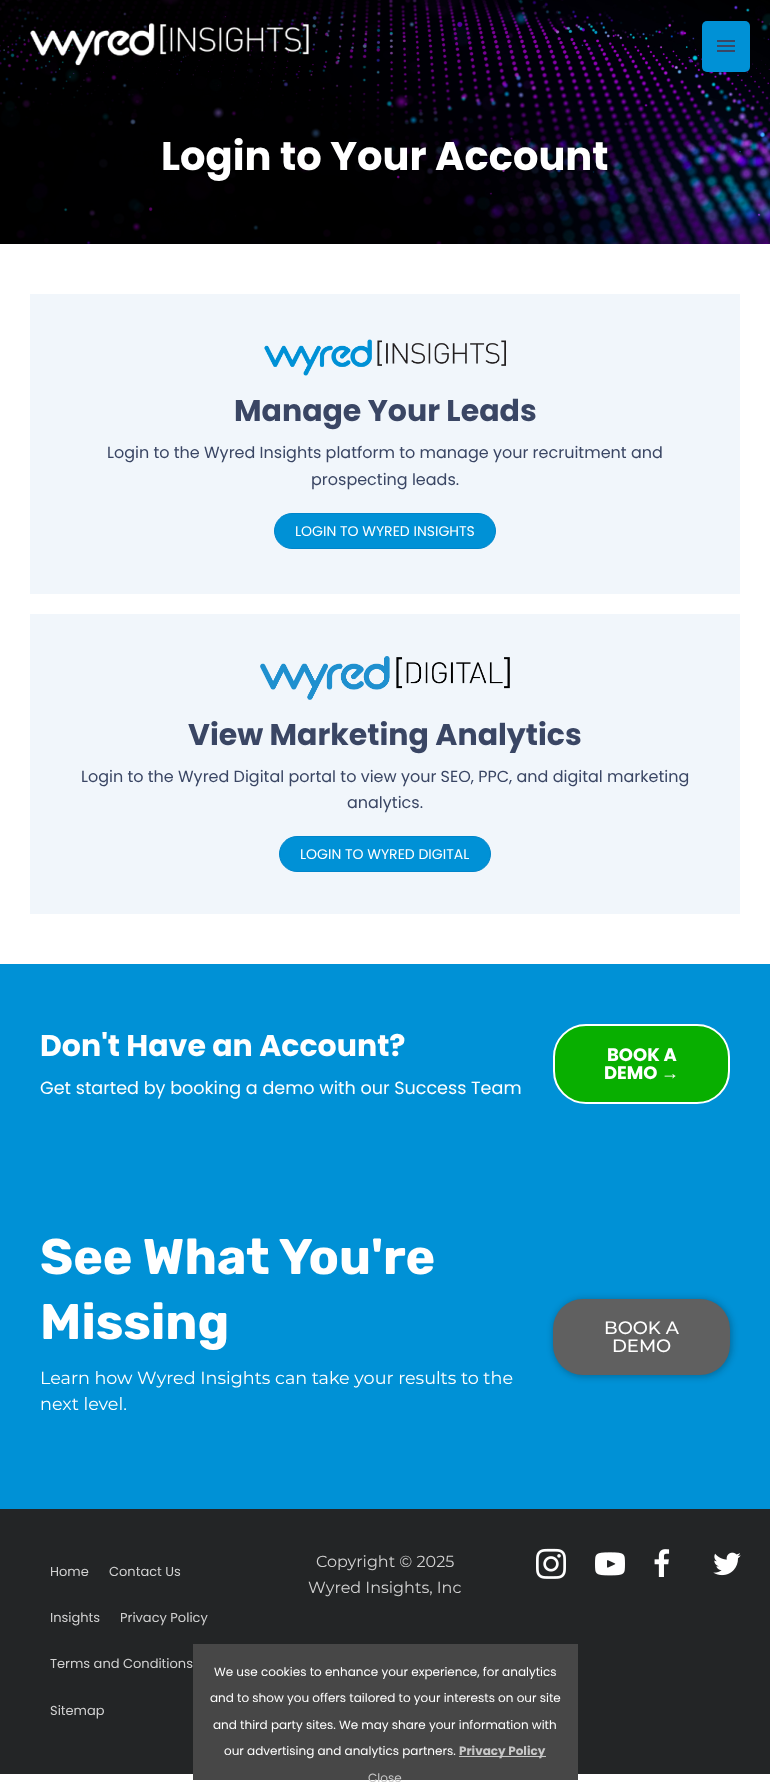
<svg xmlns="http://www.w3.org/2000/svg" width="770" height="1791">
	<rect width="100%" height="100%" fill="#FFFFFF" />
	<image x="0" y="0" width="770" height="244" href="assets/img3.png" />
	<image x="30" y="23" width="279" height="43" href="assets/img1.png" />
	<rect x="702" y="21" width="48" height="51" rx="5" fill="#0091D6" />
	<image x="717" y="40" width="18" height="12" href="assets/img2.png" />
	<text x="161" y="170" font-family="Poppins" font-size="40" font-weight="700" fill="#FFFFFF">Login to Your Account</text>
	<rect x="30" y="294" width="710" height="300" fill="#F1F6FB" />
	<image x="264" y="339" width="242" height="37" href="assets/img4.png" />
	<text x="234" y="421" font-family="Poppins" font-size="30" font-weight="700" fill="#3A4664">Manage Your Leads</text>
	<g font-family="Poppins" font-size="16" fill="#3A4664">
		<text x="107" y="458">Login to the Wyred Insights platform to manage your recruitment and</text>
		<text x="311" y="485">prospecting leads.</text>
	</g>
	<rect x="274.5" y="513.5" width="221" height="35" rx="17.5" fill="#0091D6" stroke="#0085CA" />
	<text x="295" y="536" font-family="Poppins" font-size="14" fill="#FFFFFF">LOGIN TO WYRED INSIGHTS</text>
	<rect x="30" y="614" width="710" height="300" fill="#F1F6FB" />
	<image x="260" y="656" width="250" height="44" href="assets/img5.png" />
	<text x="188" y="745" font-family="Poppins" font-size="30" font-weight="700" fill="#3A4664">View Marketing Analytics</text>
	<g font-family="Poppins" font-size="16" fill="#3A4664">
		<text x="81" y="782">Login to the Wyred Digital portal to view your SEO, PPC, and digital marketing</text>
		<text x="347" y="808">analytics.</text>
	</g>
	<rect x="279.5" y="836.5" width="211" height="35" rx="17.5" fill="#0091D6" stroke="#0085CA" />
	<text x="300" y="859" font-family="Poppins" font-size="14" fill="#FFFFFF">LOGIN TO WYRED DIGITAL</text>
	<rect x="0" y="964" width="770" height="545" fill="#0091D6" />
	<text x="40" y="1056" font-family="Poppins" font-size="30" font-weight="700" fill="#FFFFFF">Don't Have an Account?</text>
	<text x="40" y="1094" font-family="Poppins" font-size="17.6" fill="#FFFFFF">Get started by booking a demo with our Success Team</text>
	<rect x="554" y="1025" width="175" height="78" rx="32" fill="#08AF00" stroke="#FFFFFF" stroke-width="2" />
	<g font-family="Poppins" font-size="18" font-weight="700" fill="#FFFFFF">
		<text x="607" y="1061">BOOK A</text>
		<text x="604" y="1079">DEMO</text>
	</g>
	<text x="661" y="1079" font-family="Liberation Sans" font-size="18" font-weight="700" fill="#FFFFFF">→</text>
	<g font-family="Rubik" font-size="50" font-weight="300" fill="#FFFFFF">
		<text x="40" y="1274">See What You're</text>
		<text x="40" y="1339">Missing</text>
	</g>
	<g font-family="Montserrat" font-size="17.6" fill="#FFFFFF">
		<text x="40" y="1384">Learn how Wyred Insights can take your results to the</text>
		<text x="40" y="1410">next level.</text>
	</g>
	<rect x="553" y="1299" width="179" height="78" rx="31" fill="#0A0A0A" fill-opacity="0.26" filter="blur(3px)" />
	<rect x="553" y="1299" width="177" height="76" rx="30" fill="#606060" />
	<g font-family="Montserrat" font-size="18" font-weight="500" fill="#FFFFFF">
		<text x="604" y="1334">BOOK A</text>
		<text x="612" y="1352">DEMO</text>
	</g>
	<rect x="0" y="1509" width="770" height="265" fill="#232526" />
	<g font-family="Poppins" font-size="13" fill="#D1D1D1">
		<text x="50" y="1576">Home</text>
		<text x="109" y="1576">Contact Us</text>
		<text x="50" y="1622">Insights</text>
		<text x="120" y="1622">Privacy Policy</text>
		<text x="50" y="1668">Terms and Conditions</text>
		<text x="50" y="1715">Sitemap</text>
	</g>
	<g font-family="Montserrat" font-size="16" fill="#D1D1D1">
		<text x="316" y="1567">Copyright © 2025</text>
		<text x="308" y="1593">Wyred Insights, Inc</text>
	</g>
	<image x="536" y="1548" width="30" height="31" href="assets/img6.png" />
	<image x="595" y="1552" width="30" height="24" href="assets/img7.png" />
	<image x="654" y="1549" width="16" height="28" href="assets/img8.png" />
	<image x="713" y="1552" width="28" height="24" href="assets/img9.png" />
	<rect x="193" y="1644" width="385" height="136" fill="#474747" />
	<g font-family="Poppins" font-size="12" fill="#FFFFFF">
		<text x="214" y="1676">We use cookies to enhance your experience, for analytics</text>
		<text x="210" y="1702">and to show you offers tailored to your interests on our site</text>
		<text x="213" y="1729">and third party sites. We may share your information with</text>
		<text x="224" y="1755">our advertising and analytics partners.</text>
	</g>
	<rect x="459" y="1756" width="87" height="1" fill="#C7C7C7" />
	<text x="459" y="1755" font-family="Poppins" font-size="12" font-weight="700" fill="#C7C7C7">Privacy Policy</text>
	<text x="368" y="1782" font-family="Poppins" font-size="12" fill="#C7C7C7">Close</text>
</svg>
